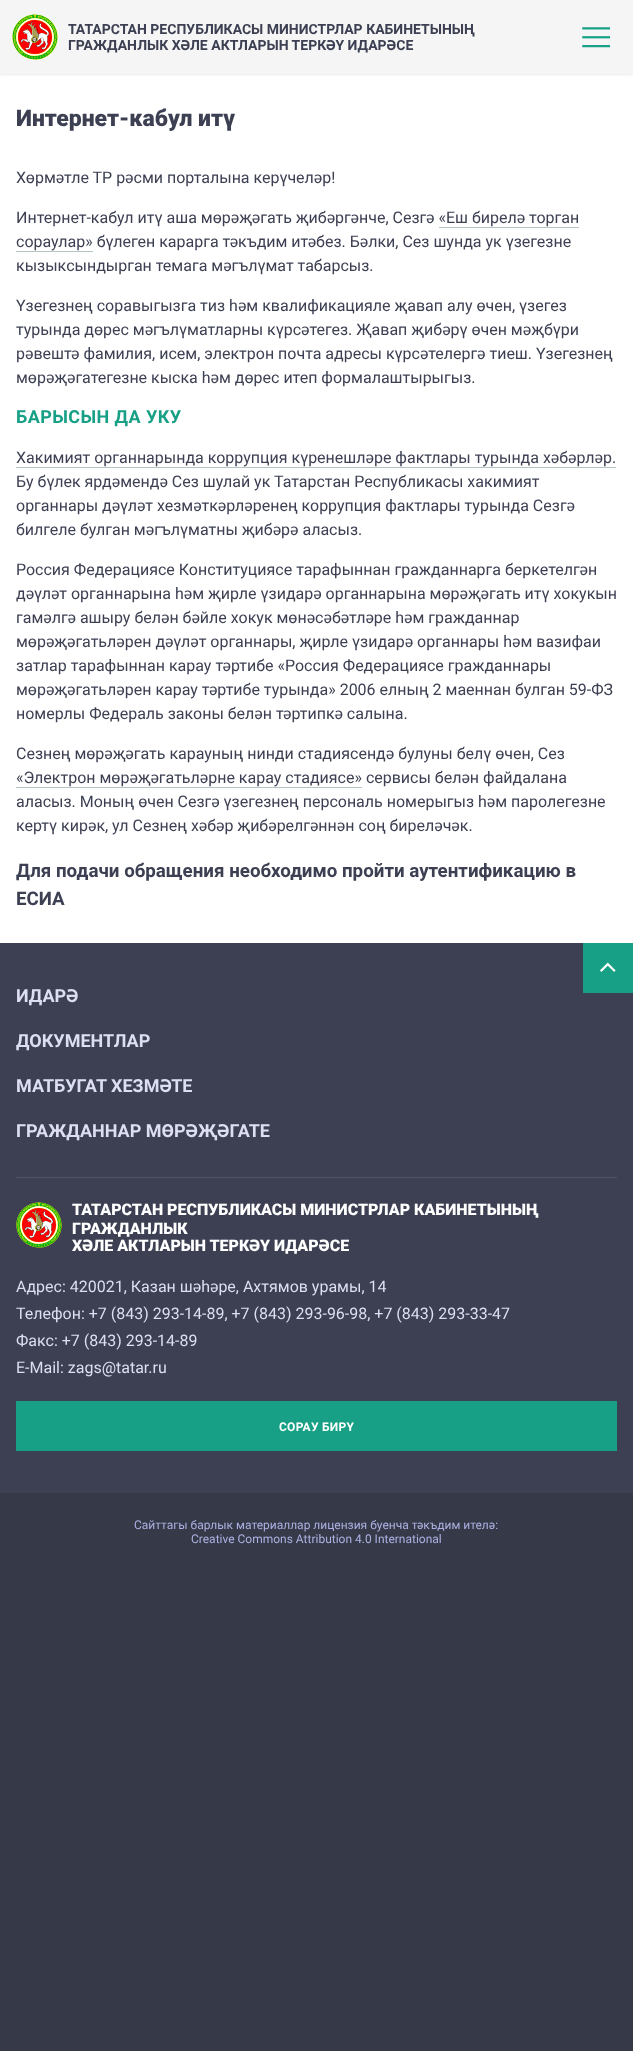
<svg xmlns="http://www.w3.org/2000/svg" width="633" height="2051">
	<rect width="100%" height="100%" fill="#363A48" />
	<rect x="0" y="74" width="633" height="869" fill="#FFFFFF" />
	<rect x="0" y="0" width="633" height="74" fill="#000000" fill-opacity="0.16" filter="blur(1.5px)" />
	<rect x="0" y="0" width="633" height="74" fill="#F5F5F5" />
	<image x="12" y="14" width="46" height="46" href="assets/img1.png" />
	<g font-family="Roboto" font-size="14" font-weight="700" fill="#3C4052">
		<text x="68" y="34">ТАТАРСТАН РЕСПУБЛИКАСЫ МИНИСТРЛАР КАБИНЕТЫНЫҢ</text>
		<text x="68" y="50">ГРАЖДАНЛЫК ХӘЛЕ АКТЛАРЫН ТЕРКӘҮ ИДАРӘСЕ</text>
	</g>
	<image x="582" y="27" width="29" height="21" href="assets/img2.png" />
	<text x="16" y="126" font-family="Roboto" font-size="23" font-weight="900" fill="#3C4052">Интернет-кабул итү</text>
	<g font-family="Roboto" font-size="16" fill="#3C4052">
		<text x="16" y="183">Хөрмәтле ТР рәсми порталына керүчеләр!</text>
		<text x="16" y="223">Интернет-кабул итү аша мөрәҗәгать җибәргәнче, Сезгә «Еш бирелә торган</text>
		<text x="16" y="247">сораулар» бүлеген карарга тәкъдим итәбез. Бәлки, Сез шунда ук үзегезне</text>
	</g>
	<rect x="439" y="227" width="140" height="1" fill="#B6C6C1" />
	<rect x="16" y="251" width="77" height="1" fill="#B6C6C1" />
	<g font-family="Roboto" font-size="16" fill="#3C4052">
		<text x="16" y="271">кызыксындырган темага мәгълүмат табарсыз.</text>
		<text x="16" y="311">Үзегезнең соравыгызга тиз һәм квалификацияле җавап алу өчен, үзегез</text>
		<text x="16" y="335">турында дөрес мәгълүматларны күрсәтегез. Җавап җибәрү өчен мәҗбүри</text>
		<text x="16" y="359">рәвештә фамилия, исем, электрон почта адресы күрсәтелергә тиеш. Үзегезнең</text>
		<text x="16" y="383">мөрәҗәгатегезне кыска һәм дөрес итеп формалаштырыгыз.</text>
	</g>
	<text x="16" y="423" font-family="Roboto" font-size="18" font-weight="700" letter-spacing="0.4" fill="#17A085">БАРЫСЫН ДА УКУ</text>
	<text x="16" y="463" font-family="Roboto" font-size="16" fill="#3C4052">Хакимият органнарында коррупция күренешләре фактлары турында хәбәрләр.</text>
	<rect x="16" y="467" width="600" height="1" fill="#B6C6C1" />
	<g font-family="Roboto" font-size="16" fill="#3C4052">
		<text x="16" y="487">Бу бүлек ярдәмендә Сез шулай ук Татарстан Республикасы хакимият</text>
		<text x="16" y="511">органнары дәүләт хезмәткәрләренең коррупция фактлары турында Сезгә</text>
		<text x="16" y="535">билгеле булган мәгълүматны җибәрә аласыз.</text>
		<text x="16" y="575">Россия Федерациясе Конституциясе тарафыннан гражданнарга беркетелгән</text>
		<text x="16" y="599">дәүләт органнарына һәм җирле үзидарә органнарына мөрәҗәгать итү хокукын</text>
		<text x="16" y="623">гамәлгә ашыру белән бәйле хокук мөнәсәбәтләре һәм гражданнар</text>
		<text x="16" y="647">мөрәҗәгатьләрен дәүләт органнары, җирле үзидарә органнары һәм вазифаи</text>
		<text x="16" y="671">затлар тарафыннан карау тәртибе «Россия Федерациясе гражданнары</text>
		<text x="16" y="695">мөрәҗәгатьләрен карау тәртибе турында» 2006 елның 2 маеннан булган 59-ФЗ</text>
		<text x="16" y="719">номерлы Федераль законы белән тәртипкә салына.</text>
		<text x="16" y="759">Сезнең мөрәҗәгать карауның нинди стадиясендә булуны белү өчен, Сез</text>
		<text x="16" y="783">«Электрон мөрәҗәгатьләрне карау стадиясе» сервисы белән файдалана</text>
	</g>
	<rect x="16" y="787" width="346" height="1" fill="#B6C6C1" />
	<g font-family="Roboto" font-size="16" fill="#3C4052">
		<text x="16" y="807">аласыз. Моның өчен Сезгә үзегезнең персональ номерыгыз һәм паролегезне</text>
		<text x="16" y="831">кертү кирәк, ул Сезнең хәбәр җибәрелгәннән соң биреләчәк.</text>
	</g>
	<g font-family="Roboto" font-size="18.75" font-weight="700" fill="#3C4052">
		<text x="16" y="877">Для подачи обращения необходимо пройти аутентификацию в</text>
		<text x="16" y="905">ЕСИА</text>
	</g>
	<rect x="0" y="943" width="633" height="550" fill="#3C4052" />
	<rect x="583" y="943" width="50" height="50" fill="#17A085" />
	<image x="600" y="962" width="16" height="10" href="assets/img3.png" />
	<rect x="16" y="1177" width="601" height="1" fill="#4E5269" />
	<g font-family="Roboto" font-size="18" font-weight="700" fill="#DEDEF3">
		<text x="16" y="1002">ИДАРӘ</text>
		<text x="16" y="1047">ДОКУМЕНТЛАР</text>
		<text x="16" y="1092">МАТБУГАТ ХЕЗМӘТЕ</text>
		<text x="16" y="1137">ГРАЖДАННАР МӨРӘҖӘГАТЕ</text>
	</g>
	<image x="16" y="1202" width="46" height="46" href="assets/img4.png" />
	<g font-family="Roboto" font-size="16" font-weight="900" fill="#FFFFFF">
		<text x="72" y="1215">ТАТАРСТАН РЕСПУБЛИКАСЫ МИНИСТРЛАР КАБИНЕТЫНЫҢ</text>
		<text x="72" y="1234">ГРАЖДАНЛЫК</text>
		<text x="72" y="1251">ХӘЛЕ АКТЛАРЫН ТЕРКӘҮ ИДАРӘСЕ</text>
	</g>
	<g font-family="Roboto" font-size="16" fill="#DEDEF3">
		<text x="16" y="1292">Адрес: 420021, Казан шәһәре, Ахтямов урамы, 14</text>
		<text x="16" y="1319">Телефон: +7 (843) 293-14-89, +7 (843) 293-96-98, +7 (843) 293-33-47</text>
		<text x="16" y="1346">Факс: +7 (843) 293-14-89</text>
		<text x="16" y="1373">E-Mail: zags@tatar.ru</text>
	</g>
	<rect x="16" y="1401" width="601" height="50" fill="#17A085" />
	<text x="279" y="1431" font-family="Roboto" font-size="12" font-weight="700" letter-spacing="0.25" fill="#FFFFFF">СОРАУ БИРҮ</text>
	<g font-family="Roboto" font-size="12" fill="#ADB1E3">
		<text x="134" y="1529">Сайттагы барлык материаллар лицензия буенча тәкъдим ителә:</text>
		<text x="191" y="1543">Creative Commons Attribution 4.0 International</text>
	</g>
</svg>
